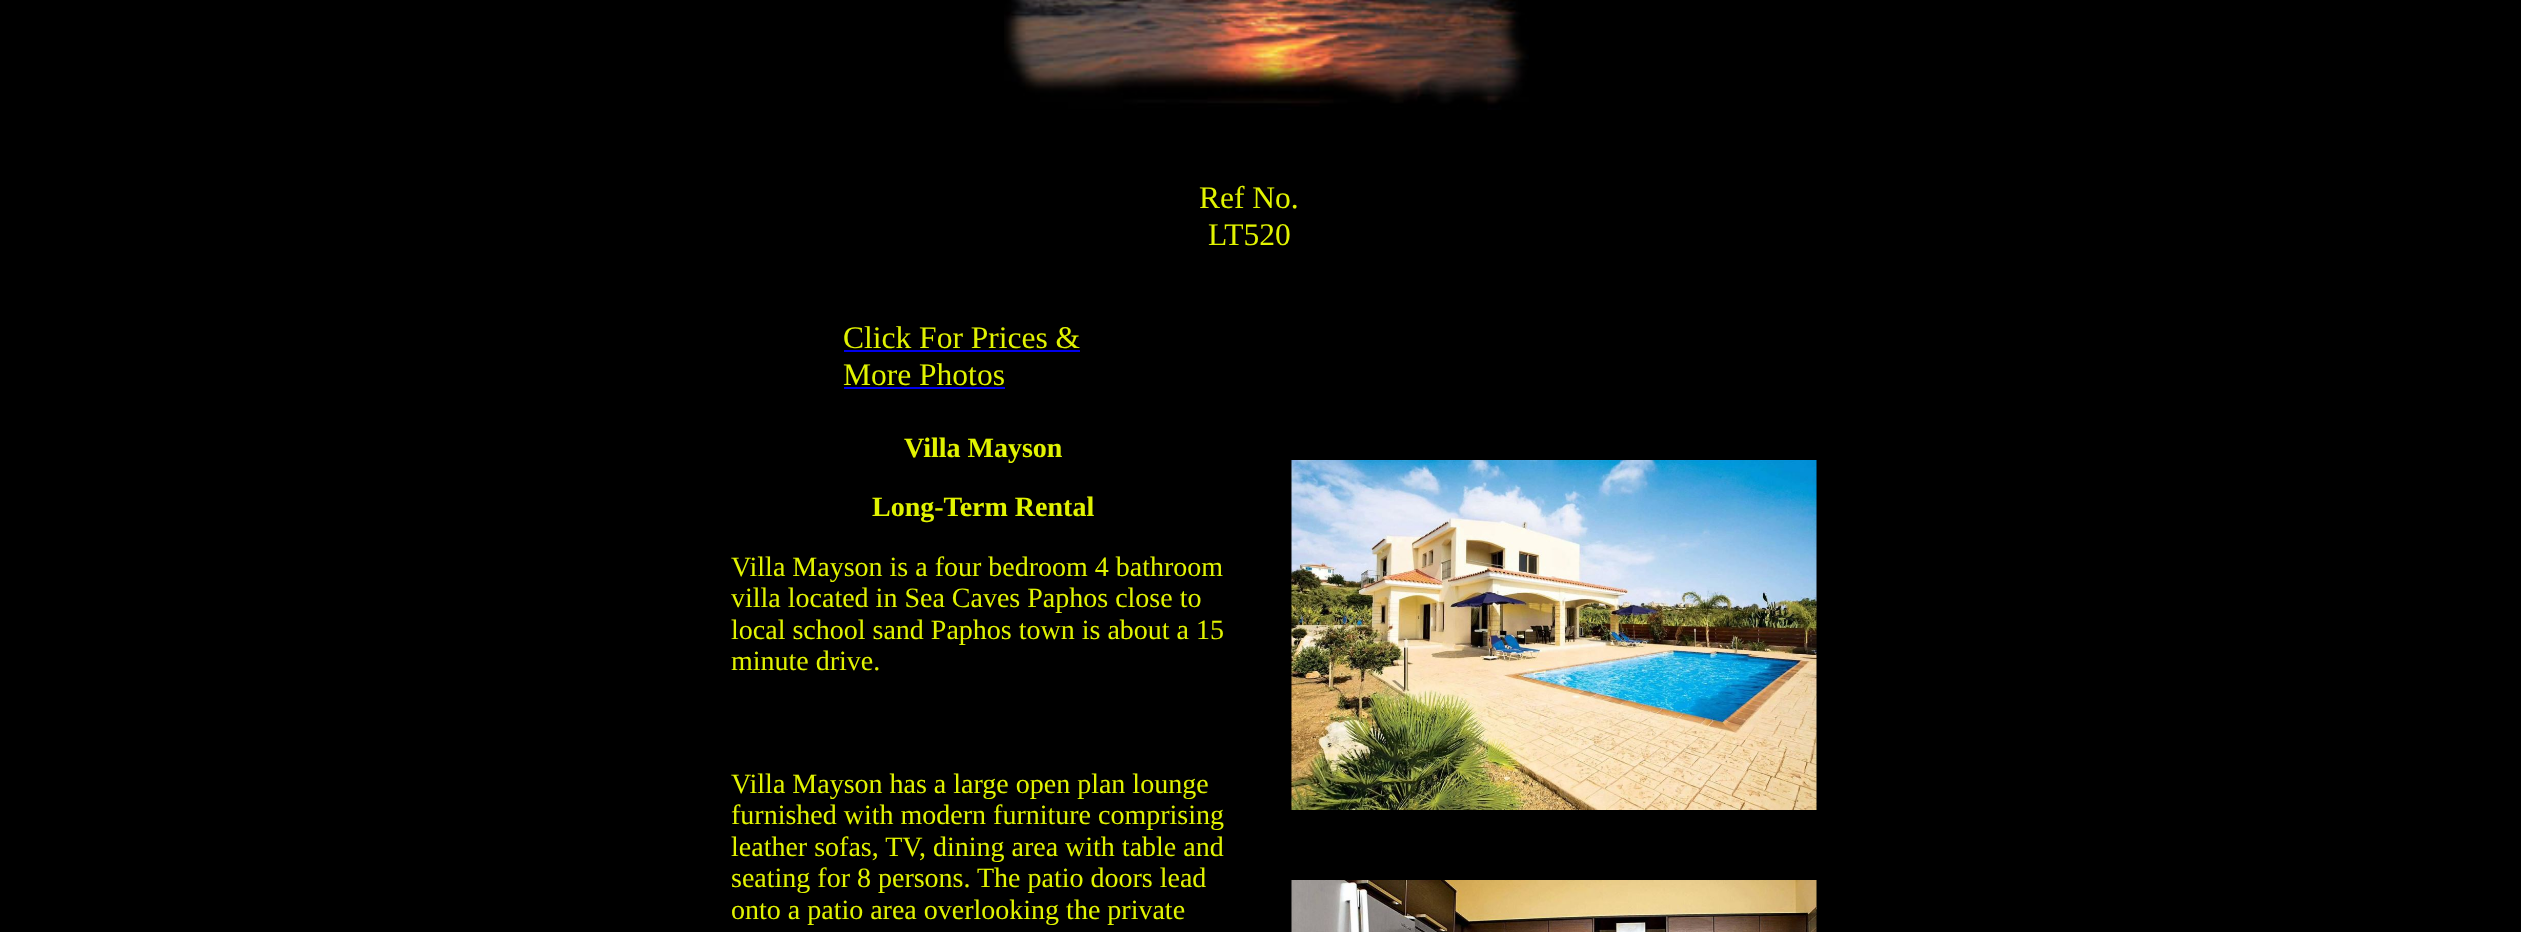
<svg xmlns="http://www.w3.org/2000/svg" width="2521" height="932">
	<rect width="100%" height="100%" fill="#000000" />
	<image x="1004" y="0" width="525" height="110" href="assets/img1.png" />
	<g font-family="Liberation Serif" font-size="31.5" fill="#E1F300">
		<text x="1199" y="208">Ref No.</text>
		<text x="1208" y="245">LT520</text>
		<text x="843" y="348">Click For Prices &amp;</text>
	</g>
	<rect x="844" y="350" width="236" height="2" fill="#0000EE" />
	<text x="843" y="385" font-family="Liberation Serif" font-size="31.5" fill="#E1F300">More Photos</text>
	<rect x="844" y="387" width="161" height="2" fill="#0000EE" />
	<g font-family="Liberation Serif" font-size="28" font-weight="700" fill="#E1F300">
		<text x="904" y="457">Villa Mayson</text>
		<text x="872" y="516">Long-Term Rental</text>
	</g>
	<g font-family="Liberation Serif" font-size="28" fill="#E1F300">
		<text x="731" y="576">Villa Mayson is a four bedroom 4 bathroom</text>
		<text x="731" y="607">villa located in Sea Caves Paphos close to</text>
		<text x="731" y="639">local school sand Paphos town is about a 15</text>
		<text x="731" y="670">minute drive.</text>
		<text x="731" y="793">Villa Mayson has a large open plan lounge</text>
		<text x="731" y="824">furnished with modern furniture comprising</text>
		<text x="731" y="856">leather sofas, TV, dining area with table and</text>
		<text x="731" y="887">seating for 8 persons. The patio doors lead</text>
		<text x="731" y="919">onto a patio area overlooking the private</text>
	</g>
	<image x="1291" y="460" width="526" height="350" href="assets/img2.png" />
	<image x="1291" y="880" width="526" height="52" href="assets/img3.png" />
</svg>
